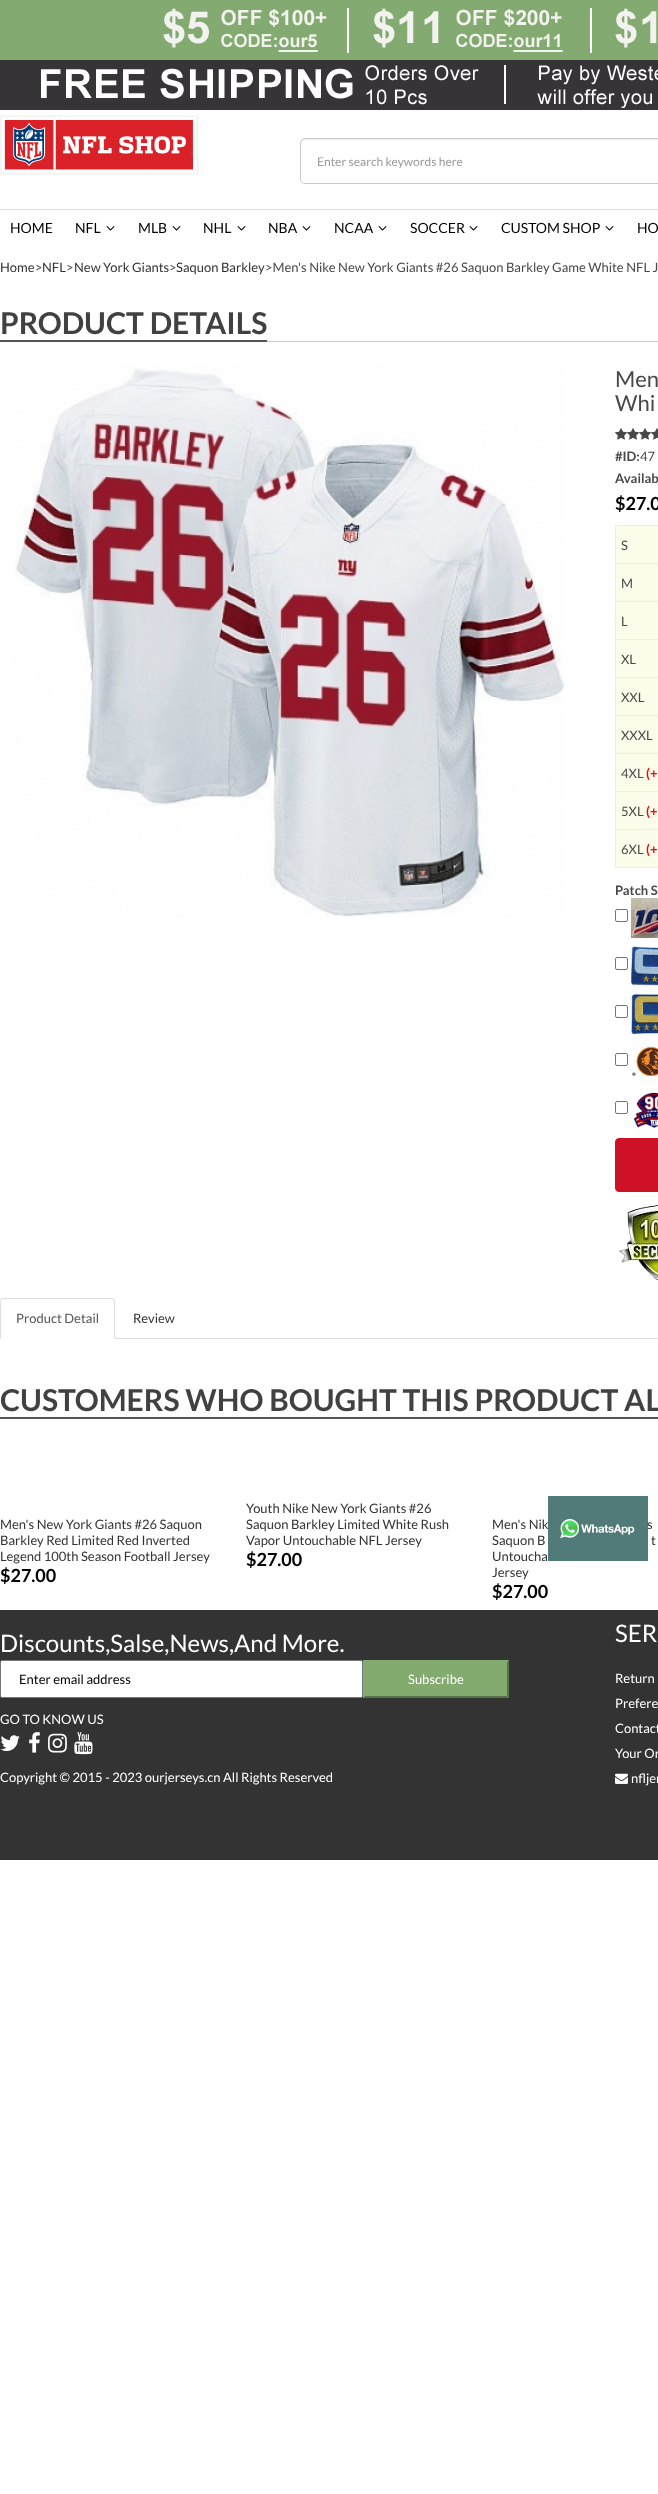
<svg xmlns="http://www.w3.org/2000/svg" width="658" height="2494">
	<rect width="100%" height="100%" fill="#FFFFFF" />
	<rect x="0" y="0" width="658" height="60" fill="#83AA71" />
	<image x="163" y="8" width="494" height="45" href="assets/img1.png" />
	<rect x="0" y="60" width="658" height="50" fill="#363436" />
	<image x="41" y="65" width="617" height="43" href="assets/img2.png" />
	<rect x="0" y="209" width="658" height="1" fill="#DEDEDE" />
	<image x="0" y="115" width="199" height="60" href="assets/img3.png" />
	<path d="M305 140H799V139H305C302 139 301 141 301 144C301 142 303 140 305 140Z" fill="#ECECEC" />
	<path d="M305 138.5H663.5V183.5H305C302.5 183.5 300.5 181.5 300.5 179V143C300.5 140.5 302.5 138.5 305 138.5Z" fill="none" stroke="#CCCCCC" />
	<text x="317" y="166" font-family="Lato" font-size="12" fill="#999999">Enter search keywords here</text>
	<g font-family="Lato" font-size="14" fill="#000000">
		<text x="10" y="233">HOME</text>
		<text x="75" y="233">NFL</text>
	</g>
	<image x="106" y="226" width="9" height="5" href="assets/img4.png" />
	<text x="138" y="233" font-family="Lato" font-size="14" fill="#000000">MLB</text>
	<image x="172" y="226" width="9" height="5" href="assets/img4.png" />
	<text x="203" y="233" font-family="Lato" font-size="14" fill="#000000">NHL</text>
	<image x="237" y="226" width="9" height="5" href="assets/img4.png" />
	<text x="268" y="233" font-family="Lato" font-size="14" fill="#000000">NBA</text>
	<image x="302" y="226" width="9" height="5" href="assets/img4.png" />
	<text x="334" y="233" font-family="Lato" font-size="14" fill="#000000">NCAA</text>
	<image x="378" y="226" width="9" height="5" href="assets/img4.png" />
	<text x="410" y="233" font-family="Lato" font-size="14" fill="#000000">SOCCER</text>
	<image x="469" y="226" width="9" height="5" href="assets/img4.png" />
	<text x="501" y="233" font-family="Lato" font-size="14" fill="#000000">CUSTOM SHOP</text>
	<image x="605" y="226" width="9" height="5" href="assets/img4.png" />
	<text x="637" y="233" font-family="Lato" font-size="14" fill="#000000">HO</text>
	<text x="0" y="272" font-family="Lato" font-size="13" fill="#333333">Home</text>
	<text x="35" y="272" font-family="Lato" font-size="13" fill="#484848">&gt;</text>
	<text x="42" y="272" font-family="Lato" font-size="13" fill="#333333">NFL</text>
	<text x="66" y="272" font-family="Lato" font-size="13" fill="#484848">&gt;</text>
	<text x="74" y="272" font-family="Lato" font-size="13" fill="#333333">New York Giants</text>
	<text x="169" y="272" font-family="Lato" font-size="13" fill="#484848">&gt;</text>
	<text x="176" y="272" font-family="Lato" font-size="13" fill="#333333">Saquon Barkley</text>
	<text x="265" y="272" font-family="Lato" font-size="13" fill="#484848">&gt;Men's Nike New York Giants #26 Saquon Barkley Game White NFL J</text>
	<rect x="0" y="340" width="267" height="2" fill="#555555" />
	<text x="0" y="334" font-family="Lato" font-size="30" font-weight="700" fill="#414141">PRODUCT DETAILS</text>
	<rect x="267" y="341" width="391" height="1" fill="#CCCCCC" />
	<image x="15" y="367" width="550" height="550" href="assets/img5.png" />
	<g font-family="Lato" font-size="22" fill="#484848">
		<text x="615" y="387">Men</text>
		<text x="615" y="411">Whi</text>
	</g>
	<image x="615" y="428" width="12" height="12" href="assets/img6.png" />
	<image x="627" y="428" width="12" height="12" href="assets/img6.png" />
	<image x="639" y="428" width="12" height="12" href="assets/img6.png" />
	<image x="651" y="428" width="7" height="12" href="assets/img7.png" />
	<text x="615" y="461" font-family="Lato" font-size="13" font-weight="700" fill="#484848">#ID:</text>
	<text x="640" y="461" font-family="Lato" font-size="13" fill="#484848">47</text>
	<text x="615" y="483" font-family="Lato" font-size="13" font-weight="700" fill="#484848">Availab</text>
	<text x="615" y="510" font-family="Lato" font-size="18" font-weight="700" fill="#000000">$27.0</text>
	<rect x="616" y="526" width="42" height="341" fill="#FBFCEA" />
	<rect x="615" y="525" width="43" height="1" fill="#EDEEDC" />
	<rect x="615" y="867" width="43" height="1" fill="#EDEEDC" />
	<rect x="615" y="525" width="1" height="343" fill="#EDEEDC" />
	<rect x="615" y="563" width="43" height="1" fill="#EDEEDC" />
	<text x="621" y="550" font-family="Lato" font-size="13" fill="#484848">S</text>
	<rect x="615" y="601" width="43" height="1" fill="#EDEEDC" />
	<text x="621" y="588" font-family="Lato" font-size="13" fill="#484848">M</text>
	<rect x="615" y="639" width="43" height="1" fill="#EDEEDC" />
	<text x="621" y="626" font-family="Lato" font-size="13" fill="#484848">L</text>
	<rect x="615" y="677" width="43" height="1" fill="#EDEEDC" />
	<text x="621" y="664" font-family="Lato" font-size="13" fill="#484848">XL</text>
	<rect x="615" y="715" width="43" height="1" fill="#EDEEDC" />
	<text x="621" y="702" font-family="Lato" font-size="13" fill="#484848">XXL</text>
	<rect x="615" y="753" width="43" height="1" fill="#EDEEDC" />
	<text x="621" y="740" font-family="Lato" font-size="13" fill="#484848">XXXL</text>
	<rect x="615" y="791" width="43" height="1" fill="#EDEEDC" />
	<text x="621" y="778" font-family="Lato" font-size="13" fill="#484848">4XL</text>
	<text x="646" y="778" font-family="Lato" font-size="13" font-weight="700" fill="#FF0000">(+</text>
	<rect x="615" y="829" width="43" height="1" fill="#EDEEDC" />
	<text x="621" y="816" font-family="Lato" font-size="13" fill="#484848">5XL</text>
	<text x="646" y="816" font-family="Lato" font-size="13" font-weight="700" fill="#FF0000">(+</text>
	<text x="621" y="854" font-family="Lato" font-size="13" fill="#484848">6XL</text>
	<text x="646" y="854" font-family="Lato" font-size="13" font-weight="700" fill="#FF0000">(+</text>
	<text x="615" y="895" font-family="Lato" font-size="13" font-weight="700" fill="#484848">Patch S</text>
	<rect x="615.5" y="909.5" width="12" height="12" rx="1.5" fill="none" stroke="#767676" />
	<image x="631" y="898" width="27" height="40" href="assets/img8.png" />
	<rect x="615.5" y="957.5" width="12" height="12" rx="1.5" fill="none" stroke="#767676" />
	<image x="631" y="946" width="27" height="40" href="assets/img9.png" />
	<rect x="615.5" y="1005.5" width="12" height="12" rx="1.5" fill="none" stroke="#767676" />
	<image x="631" y="994" width="27" height="40" href="assets/img10.png" />
	<rect x="615.5" y="1053.5" width="12" height="12" rx="1.5" fill="none" stroke="#767676" />
	<image x="632" y="1046" width="26" height="31" href="assets/img11.png" />
	<rect x="615.5" y="1101.5" width="12" height="12" rx="1.5" fill="none" stroke="#767676" />
	<image x="633" y="1092" width="25" height="36" href="assets/img12.png" />
	<rect x="615.5" y="1138.5" width="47" height="53" rx="3.5" fill="#CE1126" stroke="#CE1126" />
	<image x="618" y="1205" width="40" height="81" href="assets/img13.png" />
	<rect x="115" y="1338" width="543" height="1" fill="#DDDDDD" />
	<path d="M4 1298L1 1299L2 1300L4 1299H111L113 1300L114 1299L111 1298Z" fill="#DDDDDD" />
	<path d="M115 1339V1302C115 1301 114.5 1300 114 1299L113 1300C114 1300 114 1301 114 1302V1338Z" fill="#DDDDDD" />
	<path d="M0 1339L1 1338V1302C1 1301 1 1300 2 1300L1 1299C.5 1300 0 1301 0 1302Z" fill="#DDDDDD" />
	<text x="16" y="1323" font-family="Lato" font-size="13" fill="#555555">Product Detail</text>
	<text x="133" y="1323" font-family="Lato" font-size="13" fill="#333333">Review</text>
	<rect x="0" y="1417" width="658" height="2" fill="#555555" />
	<text x="0" y="1411" font-family="Lato" font-size="30" font-weight="700" fill="#414141">CUSTOMERS WHO BOUGHT THIS PRODUCT AL</text>
	<g font-family="Lato" font-size="13" fill="#333333">
		<text x="0" y="1529">Men's New York Giants #26 Saquon</text>
		<text x="0" y="1545">Barkley Red Limited Red Inverted</text>
		<text x="0" y="1561">Legend 100th Season Football Jersey</text>
	</g>
	<text x="0" y="1582" font-family="Lato" font-size="18" font-weight="700" fill="#000000">$27.00</text>
	<g font-family="Lato" font-size="13" fill="#333333">
		<text x="246" y="1513">Youth Nike New York Giants #26</text>
		<text x="246" y="1529">Saquon Barkley Limited White Rush</text>
		<text x="246" y="1545">Vapor Untouchable NFL Jersey</text>
	</g>
	<text x="246" y="1566" font-family="Lato" font-size="18" font-weight="700" fill="#000000">$27.00</text>
	<g font-family="Lato" font-size="13" fill="#333333">
		<text x="492" y="1529">Men's Nik</text>
		<text x="647" y="1529">s</text>
		<text x="492" y="1545">Saquon B</text>
		<text x="651" y="1545">t</text>
		<text x="492" y="1561">Untoucha</text>
		<text x="492" y="1577">Jersey</text>
	</g>
	<text x="492" y="1598" font-family="Lato" font-size="18" font-weight="700" fill="#000000">$27.00</text>
	<image x="548" y="1496" width="100" height="65" href="assets/img14.png" />
	<rect x="0" y="1610" width="658" height="250" fill="#333333" />
	<text x="0" y="1652" font-family="Lato" font-size="24" fill="#FFFFFF">Discounts,Salse,News,And More.</text>
	<rect x="0.5" y="1660.5" width="362" height="37" rx="1.5" fill="#FFFFFF" stroke="#767676" />
	<text x="19" y="1684" font-family="Lato" font-size="13" fill="#000000">Enter email address</text>
	<rect x="363" y="1660" width="146" height="38" fill="#83AB70" />
	<path d="M509 1660V1698L507 1696V1662Z" fill="#57724B" />
	<path d="M509 1698H363L365 1696H507Z" fill="#57724B" />
	<path d="M363 1698V1660L365 1662V1696Z" fill="#83AB70" />
	<g font-family="Lato" font-size="13" fill="#FFFFFF">
		<text x="408" y="1684">Subscribe</text>
		<text x="0" y="1724">GO TO KNOW US</text>
	</g>
	<image x="0" y="1735" width="20" height="16" href="assets/img15.png" />
	<image x="29" y="1732" width="11" height="21" href="assets/img16.png" />
	<image x="48" y="1733" width="19" height="20" href="assets/img17.png" />
	<image x="74" y="1732" width="19" height="23" href="assets/img18.png" />
	<text x="0" y="1782" font-family="Lato" font-size="13" fill="#FFFFFF">Copyright © 2015 - 2023 ourjerseys.cn All Rights Reserved</text>
	<text x="615" y="1642" font-family="Lato" font-size="24" fill="#FFFFFF">SER</text>
	<g font-family="Lato" font-size="13" fill="#FFFFFF">
		<text x="615" y="1683">Return</text>
		<text x="615" y="1708">Prefere</text>
		<text x="615" y="1733">Contact</text>
		<text x="615" y="1758">Your Or</text>
	</g>
	<image x="615" y="1773" width="13" height="11" href="assets/img19.png" />
	<text x="631" y="1783" font-family="Lato" font-size="13" fill="#FFFFFF">nfljer</text>
</svg>
